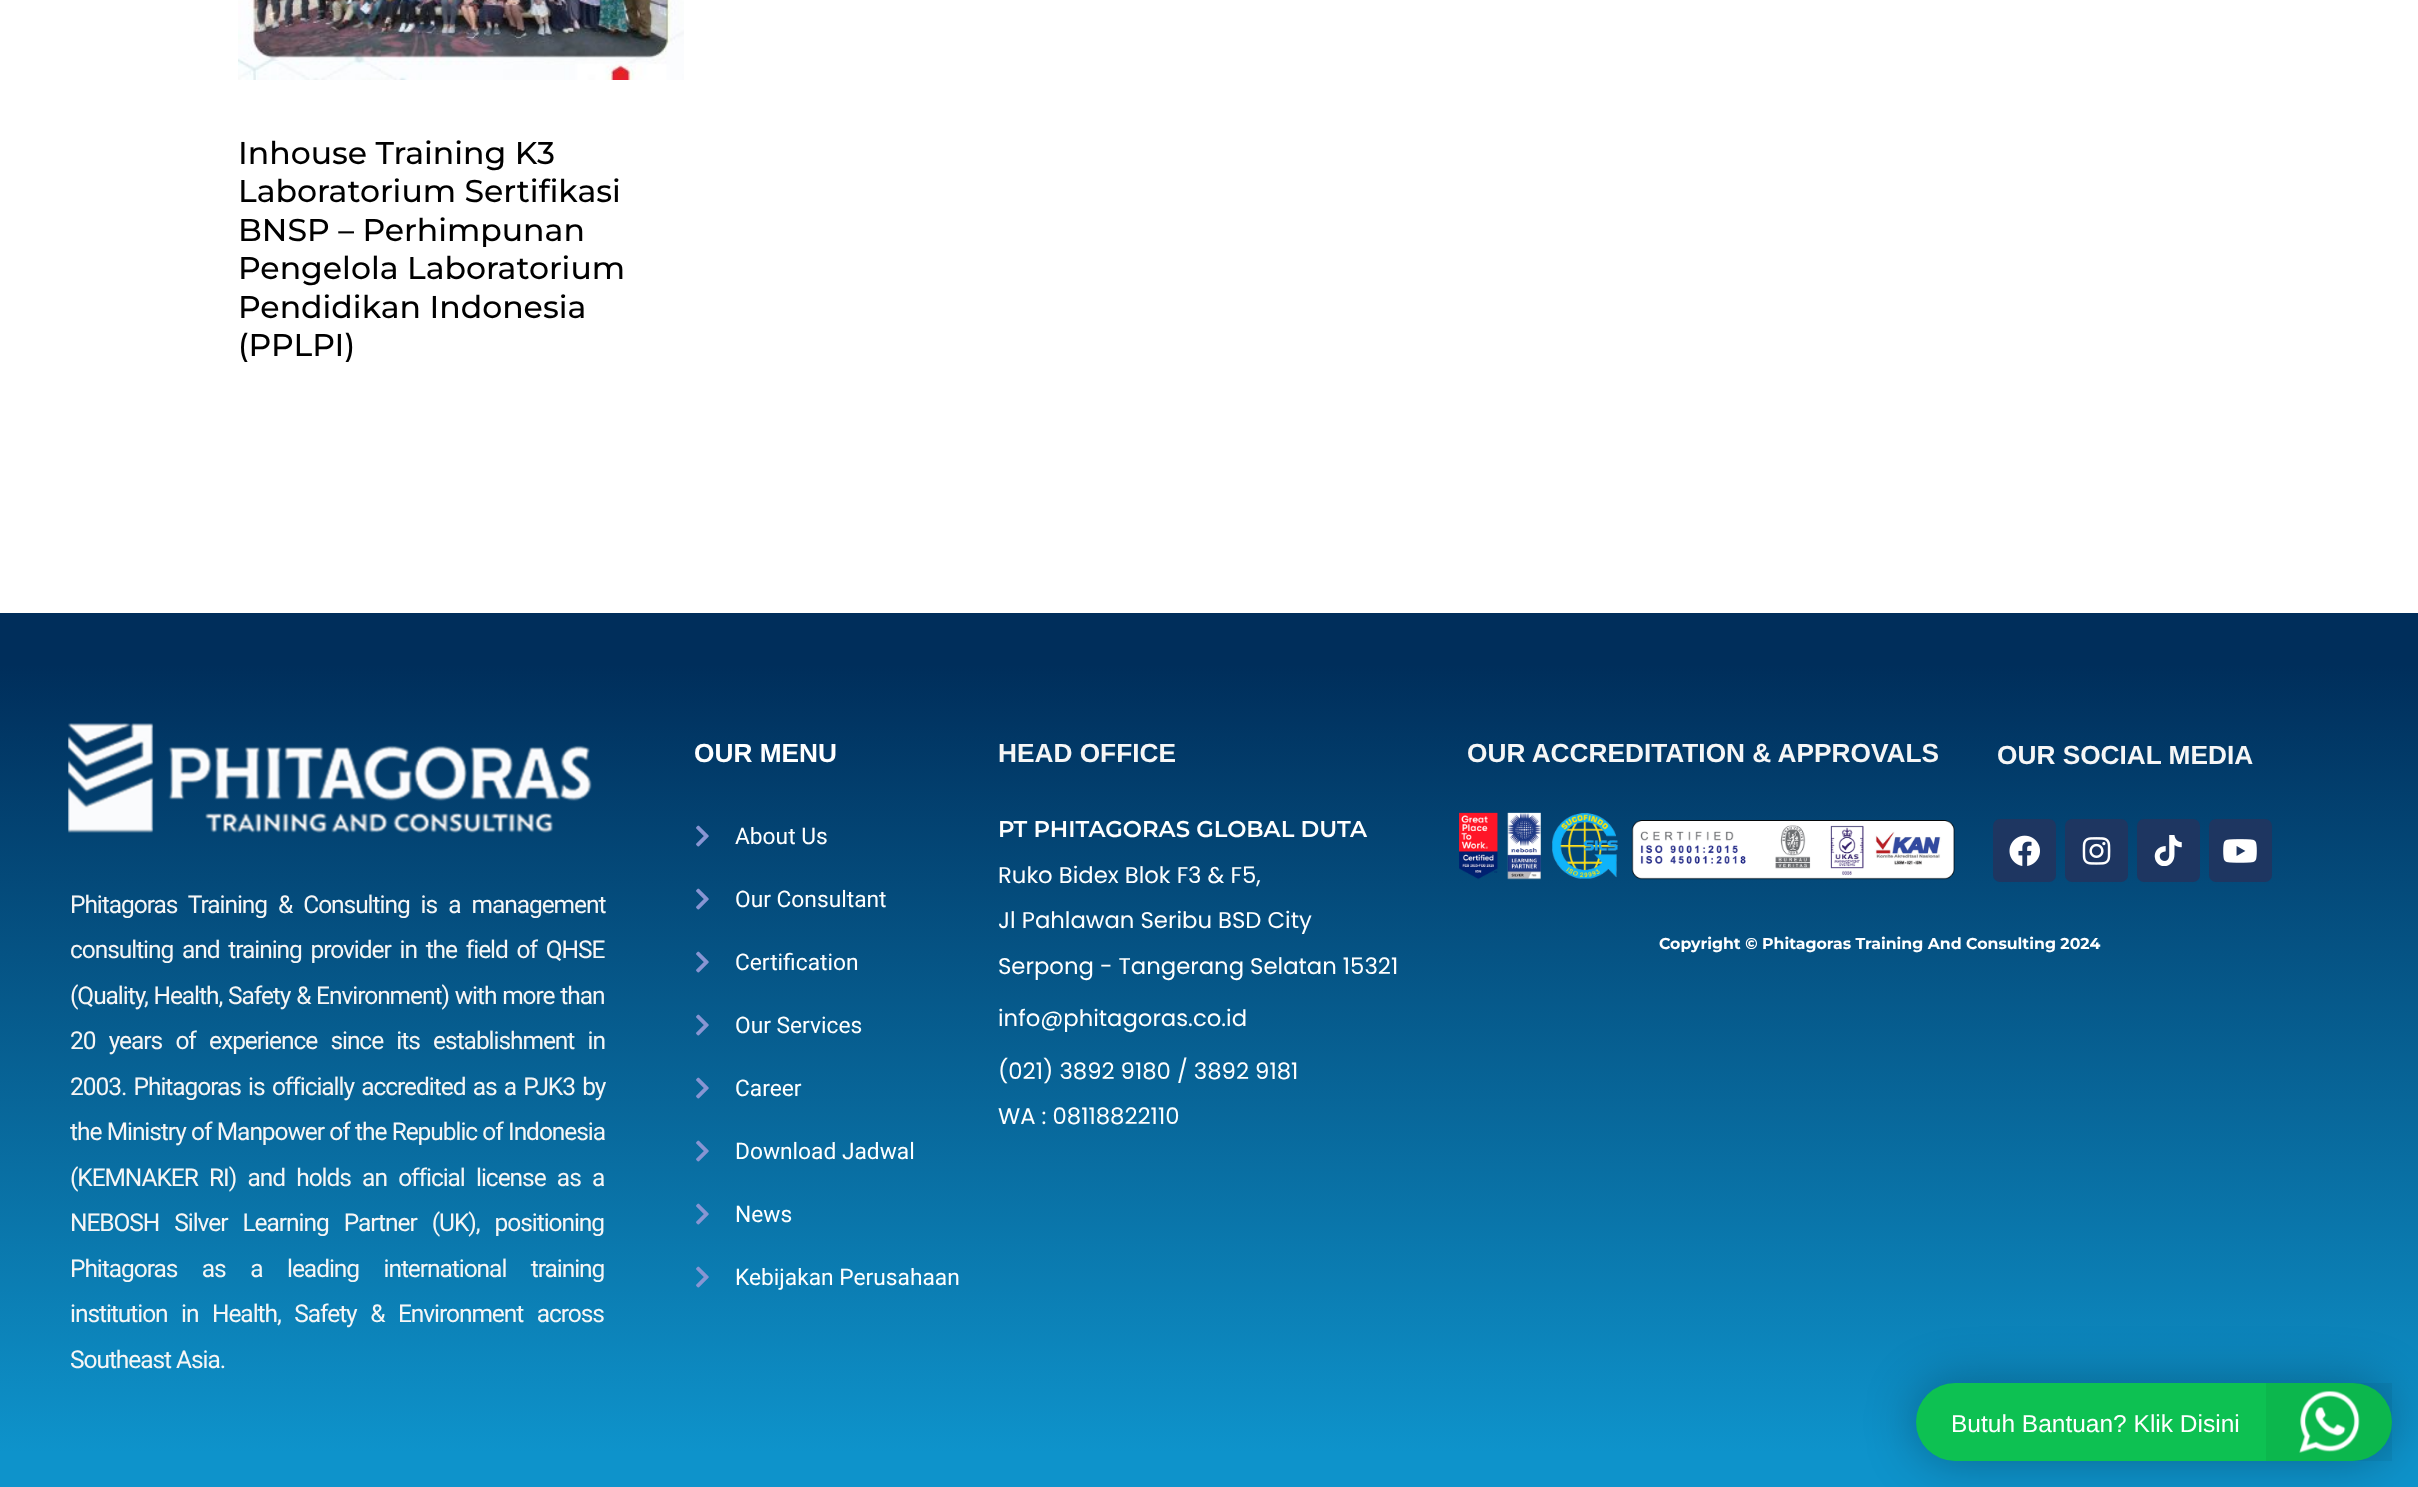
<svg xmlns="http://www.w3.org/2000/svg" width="2418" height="1487">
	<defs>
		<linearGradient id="g1" gradientUnits="userSpaceOnUse" x1="1209" y1="612" x2="1209" y2="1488"><stop offset="0.06" stop-color="#002E5B" /><stop offset="0.96" stop-color="#0E93CB" /></linearGradient>
	</defs>
	<rect width="100%" height="100%" fill="#FFFFFF" />
	<image x="238" y="0" width="446" height="80" href="assets/img1.png" />
	<g font-family="Montserrat" font-size="31.5" font-weight="500" fill="#000000">
		<text x="238" y="164">Inhouse Training K3</text>
		<text x="238" y="202">Laboratorium Sertifikasi</text>
		<text x="238" y="241">BNSP – Perhimpunan</text>
		<text x="238" y="279">Pengelola Laboratorium</text>
		<text x="238" y="318">Pendidikan Indonesia</text>
		<text x="238" y="356">(PPLPI)</text>
	</g>
	<rect x="0" y="613" width="2418" height="874" fill="url(#g1)" />
	<image x="68" y="723" width="524" height="110" href="assets/img2.png" />
	<g font-family="Roboto" font-size="24.5" letter-spacing="-1.05" fill="#F6F6F6">
		<text x="70" y="913" word-spacing="6">Phitagoras Training &amp; Consulting is a management</text>
		<text x="70" y="958" word-spacing="3.75">consulting and training provider in the field of QHSE</text>
		<text x="70" y="1004" word-spacing="0.75">(Quality, Health, Safety &amp; Environment) with more than</text>
		<text x="70" y="1049" word-spacing="8.25">20 years of experience since its establishment in</text>
		<text x="70" y="1095" word-spacing="2.25">2003. Phitagoras is officially accredited as a PJK3 by</text>
		<text x="70" y="1140" word-spacing="0.25">the Ministry of Manpower of the Republic of Indonesia</text>
		<text x="70" y="1186" word-spacing="6.25">(KEMNAKER RI) and holds an official license as a</text>
		<text x="70" y="1231" word-spacing="10">NEBOSH Silver Learning Partner (UK), positioning</text>
		<text x="70" y="1277" word-spacing="19.5">Phitagoras as a leading international training</text>
		<text x="70" y="1322" word-spacing="8.5">institution in Health, Safety &amp; Environment across</text>
		<text x="70" y="1368">Southeast Asia.</text>
	</g>
	<text x="694" y="762" font-family="Liberation Sans" font-size="26.25" font-weight="700" fill="#FFFFFF">OUR MENU</text>
	<image x="696" y="825" width="13" height="22" href="assets/img3.png" />
	<text x="735" y="844" font-family="Roboto" font-size="22.75" fill="#FFFFFF">About Us</text>
	<image x="696" y="888" width="13" height="22" href="assets/img4.png" />
	<text x="735" y="907" font-family="Roboto" font-size="22.75" fill="#FFFFFF">Our Consultant</text>
	<image x="696" y="951" width="13" height="22" href="assets/img5.png" />
	<text x="735" y="970" font-family="Roboto" font-size="22.75" fill="#FFFFFF">Certification</text>
	<image x="696" y="1014" width="13" height="22" href="assets/img6.png" />
	<text x="735" y="1033" font-family="Roboto" font-size="22.75" fill="#FFFFFF">Our Services</text>
	<image x="696" y="1077" width="13" height="22" href="assets/img7.png" />
	<text x="735" y="1096" font-family="Roboto" font-size="22.75" fill="#FFFFFF">Career</text>
	<image x="696" y="1140" width="13" height="22" href="assets/img8.png" />
	<text x="735" y="1159" font-family="Roboto" font-size="22.75" fill="#FFFFFF">Download Jadwal</text>
	<image x="696" y="1203" width="13" height="22" href="assets/img9.png" />
	<text x="735" y="1222" font-family="Roboto" font-size="22.75" fill="#FFFFFF">News</text>
	<image x="696" y="1266" width="13" height="22" href="assets/img10.png" />
	<text x="735" y="1285" font-family="Roboto" font-size="22.75" fill="#FFFFFF">Kebijakan Perusahaan</text>
	<text x="998" y="762" font-family="Liberation Sans" font-size="26.25" font-weight="700" fill="#F6F6F6">HEAD OFFICE</text>
	<text x="998" y="837" font-family="Montserrat" font-size="22.75" font-weight="600" fill="#FFFFFF">PT PHITAGORAS GLOBAL DUTA</text>
	<g font-family="Poppins" font-size="22.75" fill="#FFFFFF">
		<text x="998" y="883">Ruko Bidex Blok F3 &amp; F5,</text>
		<text x="998" y="928">Jl Pahlawan Seribu BSD City</text>
		<text x="998" y="974">Serpong - Tangerang Selatan 15321</text>
		<text x="998" y="1026">info@phitagoras.co.id</text>
		<text x="998" y="1079">(021) 3892 9180 / 3892 9181</text>
		<text x="998" y="1124">WA : 08118822110</text>
	</g>
	<text x="1467" y="762" font-family="Liberation Sans" font-size="26.25" font-weight="700" fill="#F6F6F6">OUR ACCREDITATION &amp; APPROVALS</text>
	<image x="1459" y="812" width="496" height="68" href="assets/img11.png" />
	<text x="1997" y="764" font-family="Liberation Sans" font-size="26.25" font-weight="700" fill="#F6F6F6">OUR SOCIAL MEDIA</text>
	<rect x="1993" y="819" width="63" height="63" rx="7" fill="#1E3661" />
	<image x="2009" y="835" width="31" height="31" href="assets/img12.png" />
	<rect x="2065" y="819" width="63" height="63" rx="7" fill="#1E3661" />
	<image x="2082" y="837" width="29" height="28" href="assets/img13.png" />
	<rect x="2137" y="819" width="63" height="63" rx="7" fill="#1E3661" />
	<image x="2154" y="835" width="28" height="31" href="assets/img14.png" />
	<rect x="2209" y="819" width="63" height="63" rx="7" fill="#1E3661" />
	<image x="2223" y="839" width="34" height="24" href="assets/img15.png" />
	<text x="1659" y="949" font-family="Montserrat" font-size="15.75" font-weight="700" fill="#FFFFFF">Copyright © Phitagoras Training And Consulting 2024</text>
	<rect x="1916" y="1383" width="476" height="78" rx="39" fill="#000000" fill-opacity="0.3" filter="blur(26px)" />
	<rect x="1916" y="1383" width="476" height="78" rx="39" fill="#0DC152" />
	<text x="1951" y="1432" font-family="Liberation Sans" font-size="24.5" fill="#FFFFFF">Butuh Bantuan? Klik Disini</text>
	<rect x="2266" y="1383" width="126" height="78" fill="#000000" fill-opacity="0.05" />
	<image x="2299" y="1390" width="61" height="63" href="assets/img16.png" />
</svg>
